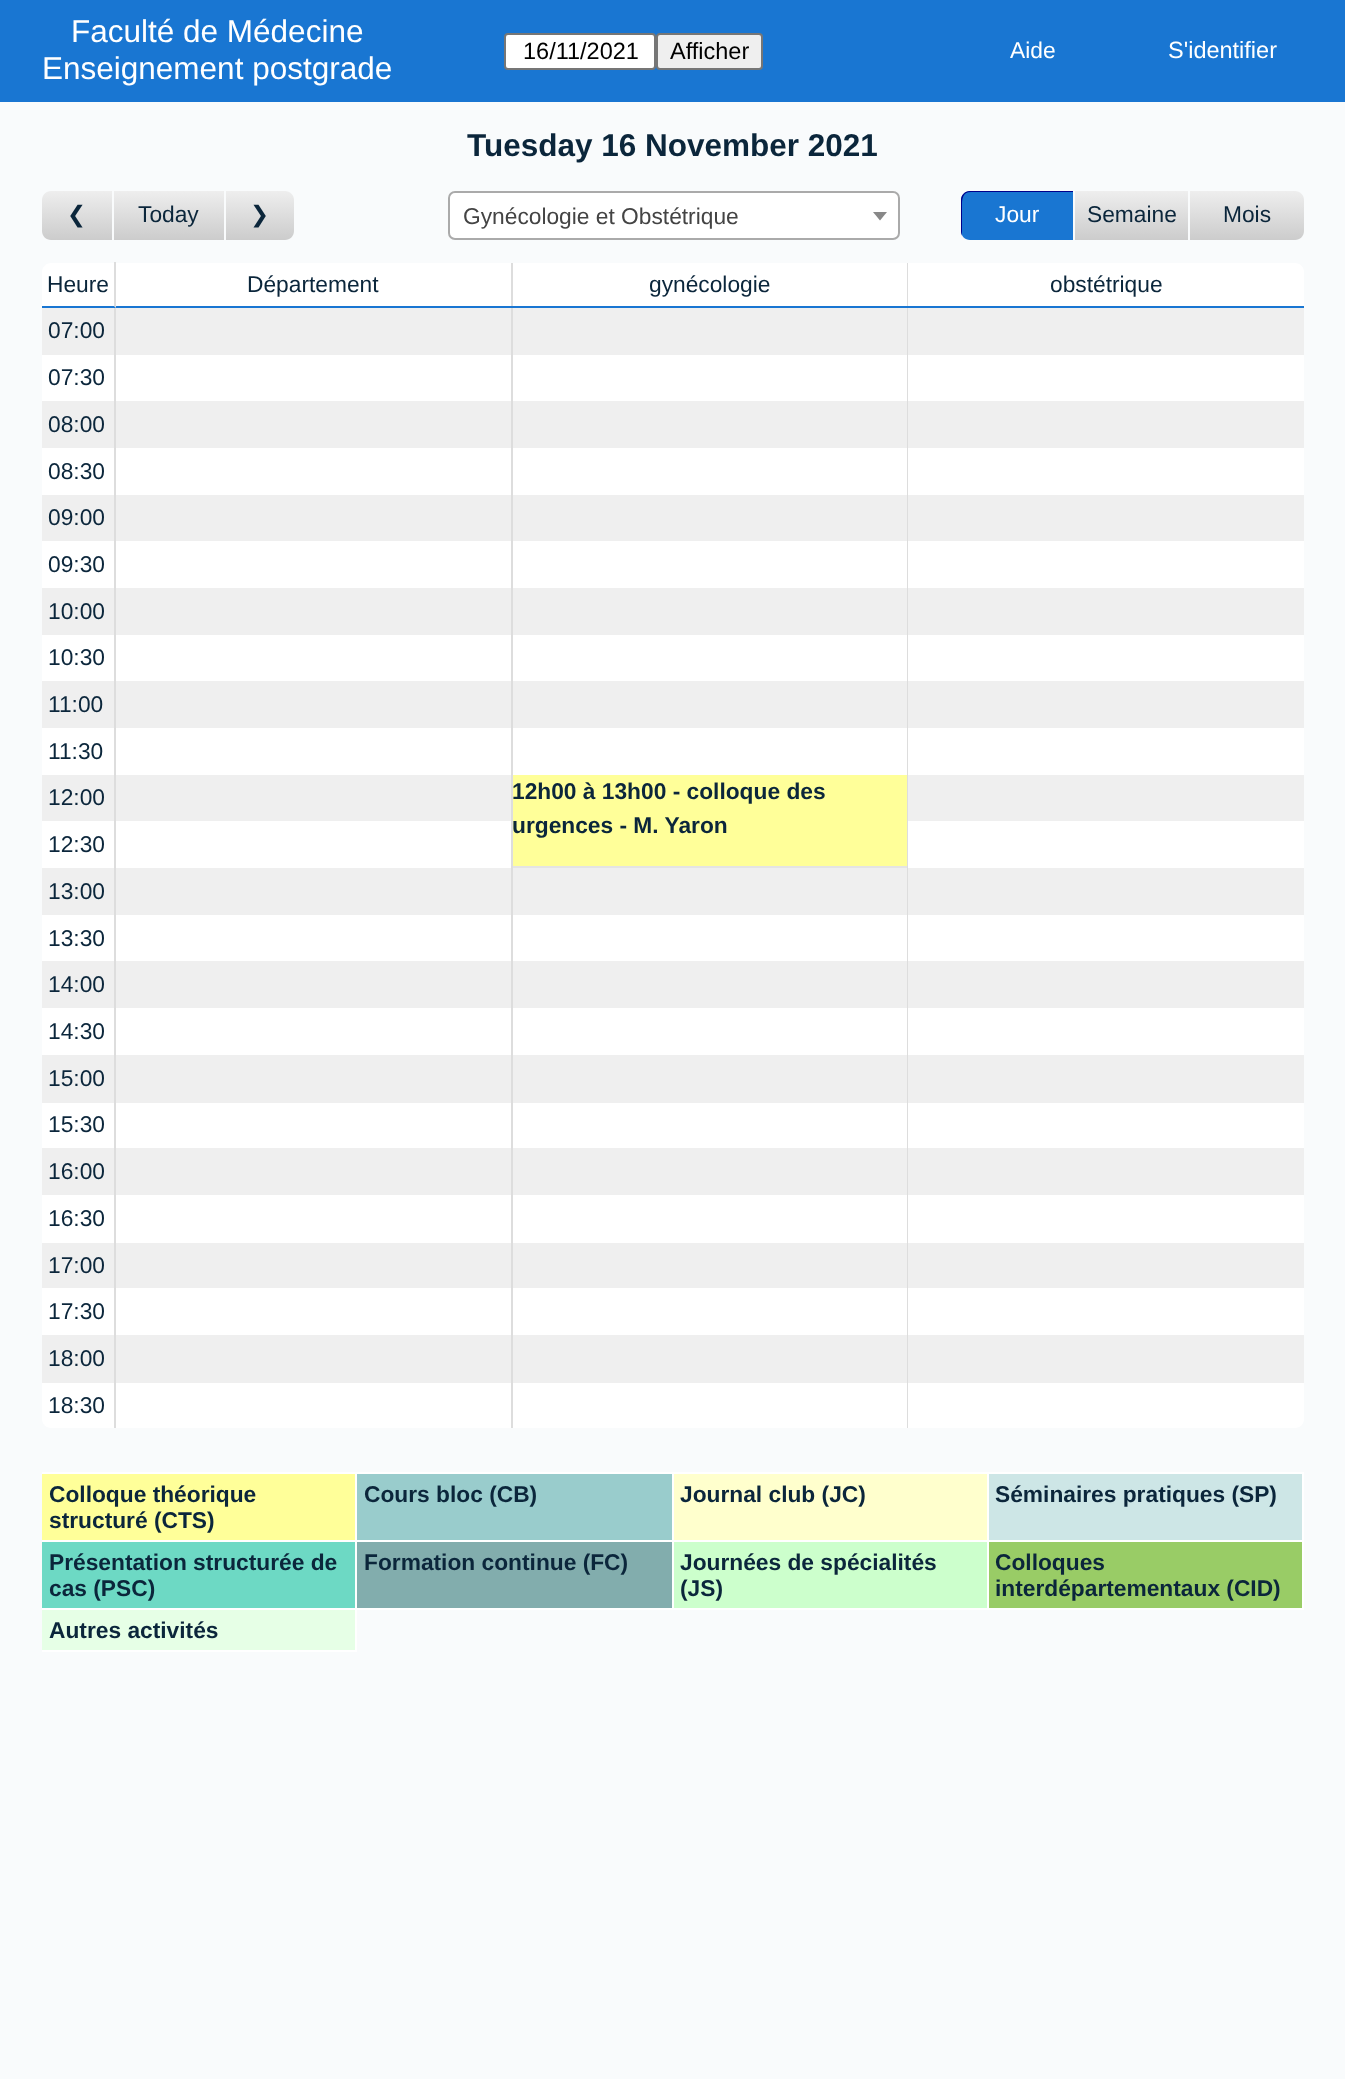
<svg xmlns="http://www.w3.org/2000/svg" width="1345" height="2079">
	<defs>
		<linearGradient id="g1" gradientUnits="userSpaceOnUse" x1="77" y1="191" x2="77" y2="240"><stop offset="0" stop-color="#EEEEEE" /><stop offset="1" stop-color="#CCCCCC" /></linearGradient>
		<linearGradient id="g2" gradientUnits="userSpaceOnUse" x1="169" y1="191" x2="169" y2="240"><stop offset="0" stop-color="#EEEEEE" /><stop offset="1" stop-color="#CCCCCC" /></linearGradient>
		<linearGradient id="g3" gradientUnits="userSpaceOnUse" x1="260" y1="191" x2="260" y2="240"><stop offset="0" stop-color="#EEEEEE" /><stop offset="1" stop-color="#CCCCCC" /></linearGradient>
		<linearGradient id="g4" gradientUnits="userSpaceOnUse" x1="1131" y1="191" x2="1131" y2="240"><stop offset="0" stop-color="#EEEEEE" /><stop offset="1" stop-color="#CCCCCC" /></linearGradient>
		<linearGradient id="g5" gradientUnits="userSpaceOnUse" x1="1247" y1="191" x2="1247" y2="240"><stop offset="0" stop-color="#EEEEEE" /><stop offset="1" stop-color="#CCCCCC" /></linearGradient>
		<clipPath id="clip1"><rect x="42" y="102" width="1262" height="1550" /></clipPath>
	</defs>
	<rect width="100%" height="100%" fill="#F9FBFC" />
	<rect x="0" y="0" width="1345" height="102" fill="#1976D2" />
	<g font-family="Liberation Sans" font-size="31.5" fill="#FFFFFF">
		<text x="71" y="42">Faculté de Médecine</text>
		<text x="42" y="79">Enseignement postgrade</text>
	</g>
	<rect x="505" y="34" width="150" height="35" rx="3" fill="#FFFFFF" stroke="#767676" stroke-width="2" />
	<text x="523" y="59" font-family="Liberation Sans" font-size="23.5" fill="#000000">16/11/2021</text>
	<rect x="657" y="34" width="105" height="35" rx="3" fill="#EFEFEF" stroke="#767676" stroke-width="2" />
	<text x="670" y="59" font-family="Liberation Sans" font-size="23.5" fill="#000000">Afficher</text>
	<text x="1010" y="58" font-family="Liberation Sans" font-size="22.75" fill="#FFFFFF">Aide</text>
	<text x="1168" y="58" font-family="Liberation Sans" font-size="23.5" fill="#FFFFFF">S'identifier</text>
	<text x="467" y="156" font-family="Liberation Sans" font-size="31.5" font-weight="700" fill="#0B263B">Tuesday 16 November 2021</text>
	<path d="M51 191H114V240H51C46 240 42 236 42 231V200C42 195 46 191 51 191Z" fill="url(#g1)" />
	<rect x="112" y="191" width="2" height="49" fill="#F9FBFC" />
	<text x="67" y="222" font-family="DejaVu Sans" font-size="22.75" fill="#0B263B">❮</text>
	<rect x="114" y="191" width="110" height="49" fill="url(#g2)" />
	<text x="138" y="222" font-family="Liberation Sans" font-size="22.75" fill="#0B263B">Today</text>
	<path d="M226 191H285C290 191 294 195 294 200V231C294 236 290 240 285 240H226Z" fill="url(#g3)" />
	<text x="250" y="222" font-family="DejaVu Sans" font-size="22.75" fill="#0B263B">❯</text>
	<rect x="449" y="192" width="450" height="47" rx="6" fill="#FFFFFF" stroke="#AAAAAA" stroke-width="2" />
	<text x="463" y="224" font-family="Liberation Sans" font-size="22.75" fill="#444444">Gynécologie et Obstétrique</text>
	<path d="M873 212H887L880 220.5Z" fill="#888888" />
	<path d="M970 191H1075V240H970C965 240 961 236 961 231V200C961 195 965 191 970 191Z" fill="#1976D2" />
	<path d="M971 192H1073V191H970C965 191 961 195 961 200V231C961 233 962 235 962 236V228V206C962 200 962 192 971 192Z" fill="#00008B" />
	<rect x="1073" y="191" width="2" height="49" fill="#F9FBFC" />
	<text x="995" y="222" font-family="Liberation Sans" font-size="22.75" fill="#FFFFFF">Jour</text>
	<rect x="1075" y="191" width="113" height="49" fill="url(#g4)" />
	<text x="1087" y="222" font-family="Liberation Sans" font-size="22.75" fill="#0B263B">Semaine</text>
	<path d="M1190 191H1295C1300 191 1304 195 1304 200V231C1304 236 1300 240 1295 240H1190Z" fill="url(#g5)" />
	<text x="1223" y="222" font-family="Liberation Sans" font-size="22.75" fill="#0B263B">Mois</text>
	<path d="M51 263H114V306H42V272C42 267 46 263 51 263Z" fill="#FFFFFF" />
	<path d="M116 262V308L114 306V262Z" fill="#DDDDDD" />
	<path d="M116 308L114 306H42V308Z" fill="#1976D2" />
	<text x="47" y="292" font-family="Liberation Sans" font-size="22.75" fill="#0B263B">Heure</text>
	<rect x="116" y="263" width="395" height="43" fill="#FFFFFF" />
	<rect x="511" y="263" width="2" height="1165" fill="#DDDDDD" />
	<rect x="907" y="263" width="1" height="1165" fill="#DDDDDD" />
	<rect x="116" y="306" width="1188" height="2" fill="#1976D2" />
	<text x="247" y="292" font-family="Liberation Sans" font-size="22.75" fill="#0B263B">Département</text>
	<rect x="513" y="263" width="394" height="43" fill="#FFFFFF" />
	<text x="649" y="292" font-family="Liberation Sans" font-size="22.75" fill="#0B263B">gynécologie</text>
	<path d="M908 263H1295C1300 263 1304 267 1304 272V306H908Z" fill="#FFFFFF" />
	<text x="1050" y="292" font-family="Liberation Sans" font-size="22.75" fill="#0B263B">obstétrique</text>
	<rect x="42" y="308" width="72" height="47" fill="#EFEFEF" />
	<rect x="114" y="308" width="2" height="1120" fill="#DDDDDD" />
	<text x="48" y="338" font-family="Liberation Sans" font-size="22.75" fill="#0B263B">07:00</text>
	<rect x="116" y="308" width="395" height="47" fill="#EFEFEF" />
	<rect x="513" y="308" width="394" height="47" fill="#EFEFEF" />
	<rect x="908" y="308" width="396" height="47" fill="#EFEFEF" />
	<rect x="42" y="355" width="72" height="46" fill="#FFFFFF" />
	<text x="48" y="385" font-family="Liberation Sans" font-size="22.75" fill="#0B263B">07:30</text>
	<rect x="116" y="355" width="395" height="46" fill="#FFFFFF" />
	<rect x="513" y="355" width="394" height="46" fill="#FFFFFF" />
	<rect x="908" y="355" width="396" height="46" fill="#FFFFFF" />
	<rect x="42" y="401" width="72" height="47" fill="#EFEFEF" />
	<text x="48" y="432" font-family="Liberation Sans" font-size="22.75" fill="#0B263B">08:00</text>
	<rect x="116" y="401" width="395" height="47" fill="#EFEFEF" />
	<rect x="513" y="401" width="394" height="47" fill="#EFEFEF" />
	<rect x="908" y="401" width="396" height="47" fill="#EFEFEF" />
	<rect x="42" y="448" width="72" height="47" fill="#FFFFFF" />
	<text x="48" y="479" font-family="Liberation Sans" font-size="22.75" fill="#0B263B">08:30</text>
	<rect x="116" y="448" width="395" height="47" fill="#FFFFFF" />
	<rect x="513" y="448" width="394" height="47" fill="#FFFFFF" />
	<rect x="908" y="448" width="396" height="47" fill="#FFFFFF" />
	<rect x="42" y="495" width="72" height="46" fill="#EFEFEF" />
	<text x="48" y="525" font-family="Liberation Sans" font-size="22.75" fill="#0B263B">09:00</text>
	<rect x="116" y="495" width="395" height="46" fill="#EFEFEF" />
	<rect x="513" y="495" width="394" height="46" fill="#EFEFEF" />
	<rect x="908" y="495" width="396" height="46" fill="#EFEFEF" />
	<rect x="42" y="541" width="72" height="47" fill="#FFFFFF" />
	<text x="48" y="572" font-family="Liberation Sans" font-size="22.75" fill="#0B263B">09:30</text>
	<rect x="116" y="541" width="395" height="47" fill="#FFFFFF" />
	<rect x="513" y="541" width="394" height="47" fill="#FFFFFF" />
	<rect x="908" y="541" width="396" height="47" fill="#FFFFFF" />
	<rect x="42" y="588" width="72" height="47" fill="#EFEFEF" />
	<text x="48" y="619" font-family="Liberation Sans" font-size="22.75" fill="#0B263B">10:00</text>
	<rect x="116" y="588" width="395" height="47" fill="#EFEFEF" />
	<rect x="513" y="588" width="394" height="47" fill="#EFEFEF" />
	<rect x="908" y="588" width="396" height="47" fill="#EFEFEF" />
	<rect x="42" y="635" width="72" height="46" fill="#FFFFFF" />
	<text x="48" y="665" font-family="Liberation Sans" font-size="22.75" fill="#0B263B">10:30</text>
	<rect x="116" y="635" width="395" height="46" fill="#FFFFFF" />
	<rect x="513" y="635" width="394" height="46" fill="#FFFFFF" />
	<rect x="908" y="635" width="396" height="46" fill="#FFFFFF" />
	<rect x="42" y="681" width="72" height="47" fill="#EFEFEF" />
	<text x="48" y="712" font-family="Liberation Sans" font-size="22.75" fill="#0B263B">11:00</text>
	<rect x="116" y="681" width="395" height="47" fill="#EFEFEF" />
	<rect x="513" y="681" width="394" height="47" fill="#EFEFEF" />
	<rect x="908" y="681" width="396" height="47" fill="#EFEFEF" />
	<rect x="42" y="728" width="72" height="47" fill="#FFFFFF" />
	<text x="48" y="759" font-family="Liberation Sans" font-size="22.75" fill="#0B263B">11:30</text>
	<rect x="116" y="728" width="395" height="47" fill="#FFFFFF" />
	<rect x="513" y="728" width="394" height="47" fill="#FFFFFF" />
	<rect x="908" y="728" width="396" height="47" fill="#FFFFFF" />
	<rect x="42" y="775" width="72" height="46" fill="#EFEFEF" />
	<text x="48" y="805" font-family="Liberation Sans" font-size="22.75" fill="#0B263B">12:00</text>
	<rect x="116" y="775" width="395" height="46" fill="#EFEFEF" />
	<rect x="513" y="775" width="394" height="91" fill="#FFFF99" />
	<rect x="513" y="866" width="394" height="2" fill="#E4E4E4" />
	<g font-family="Liberation Sans" font-size="22.75" font-weight="700" fill="#0B263B">
		<text x="512" y="799">12h00 à 13h00 - colloque des</text>
		<text x="512" y="833">urgences - M. Yaron</text>
	</g>
	<rect x="908" y="775" width="396" height="46" fill="#EFEFEF" />
	<rect x="42" y="821" width="72" height="47" fill="#FFFFFF" />
	<text x="48" y="852" font-family="Liberation Sans" font-size="22.75" fill="#0B263B">12:30</text>
	<rect x="116" y="821" width="395" height="47" fill="#FFFFFF" />
	<rect x="908" y="821" width="396" height="47" fill="#FFFFFF" />
	<rect x="42" y="868" width="72" height="47" fill="#EFEFEF" />
	<text x="48" y="899" font-family="Liberation Sans" font-size="22.75" fill="#0B263B">13:00</text>
	<rect x="116" y="868" width="395" height="47" fill="#EFEFEF" />
	<rect x="513" y="868" width="394" height="47" fill="#EFEFEF" />
	<rect x="908" y="868" width="396" height="47" fill="#EFEFEF" />
	<rect x="42" y="915" width="72" height="46" fill="#FFFFFF" />
	<text x="48" y="946" font-family="Liberation Sans" font-size="22.75" fill="#0B263B">13:30</text>
	<rect x="116" y="915" width="395" height="46" fill="#FFFFFF" />
	<rect x="513" y="915" width="394" height="46" fill="#FFFFFF" />
	<rect x="908" y="915" width="396" height="46" fill="#FFFFFF" />
	<rect x="42" y="961" width="72" height="47" fill="#EFEFEF" />
	<text x="48" y="992" font-family="Liberation Sans" font-size="22.75" fill="#0B263B">14:00</text>
	<rect x="116" y="961" width="395" height="47" fill="#EFEFEF" />
	<rect x="513" y="961" width="394" height="47" fill="#EFEFEF" />
	<rect x="908" y="961" width="396" height="47" fill="#EFEFEF" />
	<rect x="42" y="1008" width="72" height="47" fill="#FFFFFF" />
	<text x="48" y="1039" font-family="Liberation Sans" font-size="22.75" fill="#0B263B">14:30</text>
	<rect x="116" y="1008" width="395" height="47" fill="#FFFFFF" />
	<rect x="513" y="1008" width="394" height="47" fill="#FFFFFF" />
	<rect x="908" y="1008" width="396" height="47" fill="#FFFFFF" />
	<rect x="42" y="1055" width="72" height="48" fill="#EFEFEF" />
	<text x="48" y="1086" font-family="Liberation Sans" font-size="22.75" fill="#0B263B">15:00</text>
	<rect x="116" y="1055" width="395" height="48" fill="#EFEFEF" />
	<rect x="513" y="1055" width="394" height="48" fill="#EFEFEF" />
	<rect x="908" y="1055" width="396" height="48" fill="#EFEFEF" />
	<rect x="42" y="1103" width="72" height="45" fill="#FFFFFF" />
	<text x="48" y="1132" font-family="Liberation Sans" font-size="22.75" fill="#0B263B">15:30</text>
	<rect x="116" y="1103" width="395" height="45" fill="#FFFFFF" />
	<rect x="513" y="1103" width="394" height="45" fill="#FFFFFF" />
	<rect x="908" y="1103" width="396" height="45" fill="#FFFFFF" />
	<rect x="42" y="1148" width="72" height="47" fill="#EFEFEF" />
	<text x="48" y="1179" font-family="Liberation Sans" font-size="22.75" fill="#0B263B">16:00</text>
	<rect x="116" y="1148" width="395" height="47" fill="#EFEFEF" />
	<rect x="513" y="1148" width="394" height="47" fill="#EFEFEF" />
	<rect x="908" y="1148" width="396" height="47" fill="#EFEFEF" />
	<rect x="42" y="1195" width="72" height="48" fill="#FFFFFF" />
	<text x="48" y="1226" font-family="Liberation Sans" font-size="22.75" fill="#0B263B">16:30</text>
	<rect x="116" y="1195" width="395" height="48" fill="#FFFFFF" />
	<rect x="513" y="1195" width="394" height="48" fill="#FFFFFF" />
	<rect x="908" y="1195" width="396" height="48" fill="#FFFFFF" />
	<rect x="42" y="1243" width="72" height="45" fill="#EFEFEF" />
	<text x="48" y="1273" font-family="Liberation Sans" font-size="22.75" fill="#0B263B">17:00</text>
	<rect x="116" y="1243" width="395" height="45" fill="#EFEFEF" />
	<rect x="513" y="1243" width="394" height="45" fill="#EFEFEF" />
	<rect x="908" y="1243" width="396" height="45" fill="#EFEFEF" />
	<rect x="42" y="1288" width="72" height="47" fill="#FFFFFF" />
	<text x="48" y="1319" font-family="Liberation Sans" font-size="22.75" fill="#0B263B">17:30</text>
	<rect x="116" y="1288" width="395" height="47" fill="#FFFFFF" />
	<rect x="513" y="1288" width="394" height="47" fill="#FFFFFF" />
	<rect x="908" y="1288" width="396" height="47" fill="#FFFFFF" />
	<rect x="42" y="1335" width="72" height="48" fill="#EFEFEF" />
	<text x="48" y="1366" font-family="Liberation Sans" font-size="22.75" fill="#0B263B">18:00</text>
	<rect x="116" y="1335" width="395" height="48" fill="#EFEFEF" />
	<rect x="513" y="1335" width="394" height="48" fill="#EFEFEF" />
	<rect x="908" y="1335" width="396" height="48" fill="#EFEFEF" />
	<path d="M42 1383H114V1428H51C46 1428 42 1424 42 1419Z" fill="#FFFFFF" />
	<text x="48" y="1413" font-family="Liberation Sans" font-size="22.75" fill="#0B263B">18:30</text>
	<rect x="116" y="1383" width="395" height="45" fill="#FFFFFF" />
	<rect x="513" y="1383" width="394" height="45" fill="#FFFFFF" />
	<path d="M908 1383H1304V1419C1304 1424 1300 1428 1295 1428H908Z" fill="#FFFFFF" />
	<rect x="42" y="1474" width="313" height="66" fill="#FFFF99" />
	<g clip-path="url(#clip1)">
		<rect x="41" y="1473" width="315" height="68" fill="none" stroke="#FFFFFF" stroke-width="2" />
	</g>
	<g font-family="Liberation Sans" font-size="22.75" font-weight="700" fill="#0B263B">
		<text x="49" y="1502">Colloque théorique</text>
		<text x="49" y="1528">structuré (CTS)</text>
	</g>
	<rect x="356" y="1473" width="317" height="68" fill="#99CCCC" stroke="#FFFFFF" stroke-width="2" />
	<text x="364" y="1502" font-family="Liberation Sans" font-size="22.75" font-weight="700" fill="#0B263B">Cours bloc (CB)</text>
	<rect x="673" y="1473" width="315" height="68" fill="#FFFFCD" stroke="#FFFFFF" stroke-width="2" />
	<text x="680" y="1502" font-family="Liberation Sans" font-size="22.75" font-weight="700" fill="#0B263B">Journal club (JC)</text>
	<rect x="988" y="1473" width="315" height="68" fill="#CDE6E6" stroke="#FFFFFF" stroke-width="2" />
	<text x="995" y="1502" font-family="Liberation Sans" font-size="22.75" font-weight="700" fill="#0B263B">Séminaires pratiques (SP)</text>
	<rect x="42" y="1542" width="313" height="66" fill="#6DD9C4" />
	<g clip-path="url(#clip1)">
		<rect x="41" y="1541" width="315" height="68" fill="none" stroke="#FFFFFF" stroke-width="2" />
	</g>
	<g font-family="Liberation Sans" font-size="22.75" font-weight="700" fill="#0B263B">
		<text x="49" y="1570">Présentation structurée de</text>
		<text x="49" y="1596">cas (PSC)</text>
	</g>
	<rect x="356" y="1541" width="317" height="68" fill="#82ADAD" stroke="#FFFFFF" stroke-width="2" />
	<text x="364" y="1570" font-family="Liberation Sans" font-size="22.75" font-weight="700" fill="#0B263B">Formation continue (FC)</text>
	<rect x="673" y="1541" width="315" height="68" fill="#CCFFCC" stroke="#FFFFFF" stroke-width="2" />
	<g font-family="Liberation Sans" font-size="22.75" font-weight="700" fill="#0B263B">
		<text x="680" y="1570">Journées de spécialités</text>
		<text x="680" y="1596">(JS)</text>
	</g>
	<rect x="988" y="1541" width="315" height="68" fill="#99CC66" stroke="#FFFFFF" stroke-width="2" />
	<g font-family="Liberation Sans" font-size="22.75" font-weight="700" fill="#0B263B">
		<text x="995" y="1570">Colloques</text>
		<text x="995" y="1596">interdépartementaux (CID)</text>
	</g>
	<rect x="42" y="1610" width="313" height="40" fill="#E6FFE6" />
	<g clip-path="url(#clip1)">
		<rect x="41" y="1609" width="315" height="42" fill="none" stroke="#FFFFFF" stroke-width="2" />
	</g>
	<text x="49" y="1638" font-family="Liberation Sans" font-size="22.75" font-weight="700" fill="#0B263B">Autres activités</text>
</svg>
